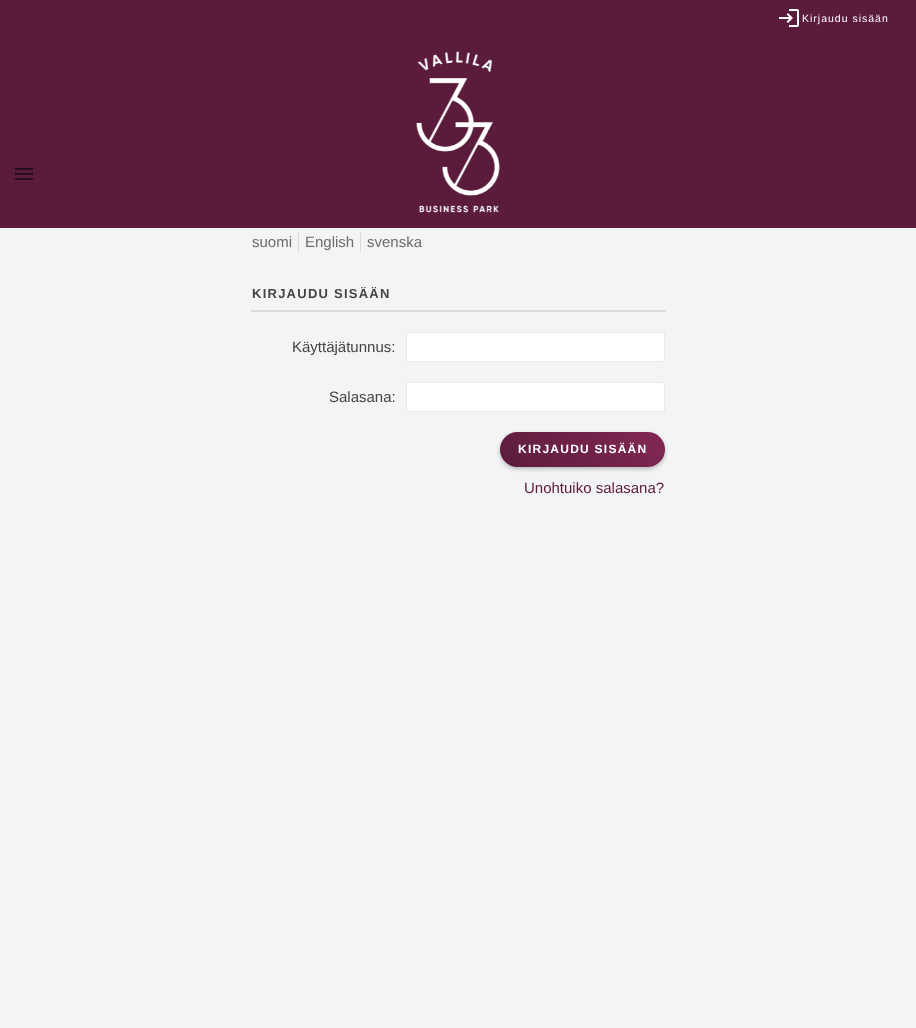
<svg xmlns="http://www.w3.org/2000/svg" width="916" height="1028">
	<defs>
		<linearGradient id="g1" gradientUnits="userSpaceOnUse" x1="633" y1="400" x2="533" y2="500"><stop offset="0" stop-color="#822854" /><stop offset="1" stop-color="#5B1C3B" /></linearGradient>
	</defs>
	<rect width="100%" height="100%" fill="#F3F4F6" />
	<rect x="0" y="0" width="916" height="228" fill="#5B1C3B" />
	<image x="416" y="51" width="84" height="162" href="assets/img1.png" />
	<image x="15" y="168" width="18" height="12" href="assets/img2.png" />
	<image x="779" y="9" width="20" height="18" href="assets/img3.png" />
	<text x="802" y="22" font-family="Liberation Sans" font-size="10.5" letter-spacing="1" fill="#FFFFFF">Kirjaudu sisään</text>
	<rect x="298" y="232" width="1" height="20" fill="#D9DBDD" />
	<text x="252" y="247" font-family="Liberation Sans" font-size="15" fill="#6B6B6B">suomi</text>
	<rect x="360" y="232" width="1" height="20" fill="#D9DBDD" />
	<g font-family="Liberation Sans" font-size="15" fill="#6B6B6B">
		<text x="305" y="247">English</text>
		<text x="367" y="247">svenska</text>
	</g>
	<rect x="251" y="310" width="415" height="2" fill="#D9DBDD" />
	<text x="252" y="298" font-family="Liberation Sans" font-size="13" font-weight="700" letter-spacing="1.25" fill="#444444">KIRJAUDU SISÄÄN</text>
	<text x="292" y="352" font-family="Liberation Sans" font-size="15" fill="#444444">Käyttäjätunnus:</text>
	<rect x="406.5" y="332.5" width="258" height="29" rx="1.5" fill="#FFFFFF" stroke="#E6E8E9" />
	<text x="329" y="402" font-family="Liberation Sans" font-size="15" fill="#444444">Salasana:</text>
	<rect x="406.5" y="382.5" width="258" height="29" rx="1.5" fill="#FFFFFF" stroke="#E6E8E9" />
	<rect x="500" y="434" width="165" height="35" rx="17.5" fill="#000000" fill-opacity="0.25" filter="blur(2px)" />
	<rect x="500" y="432" width="165" height="35" rx="17.5" fill="url(#g1)" />
	<text x="518" y="453" font-family="Liberation Sans" font-size="12" font-weight="700" letter-spacing="1.25" fill="#FFFFFF">KIRJAUDU SISÄÄN</text>
	<text x="524" y="493" font-family="Liberation Sans" font-size="15" fill="#5B1C3B">Unohtuiko salasana?</text>
</svg>
